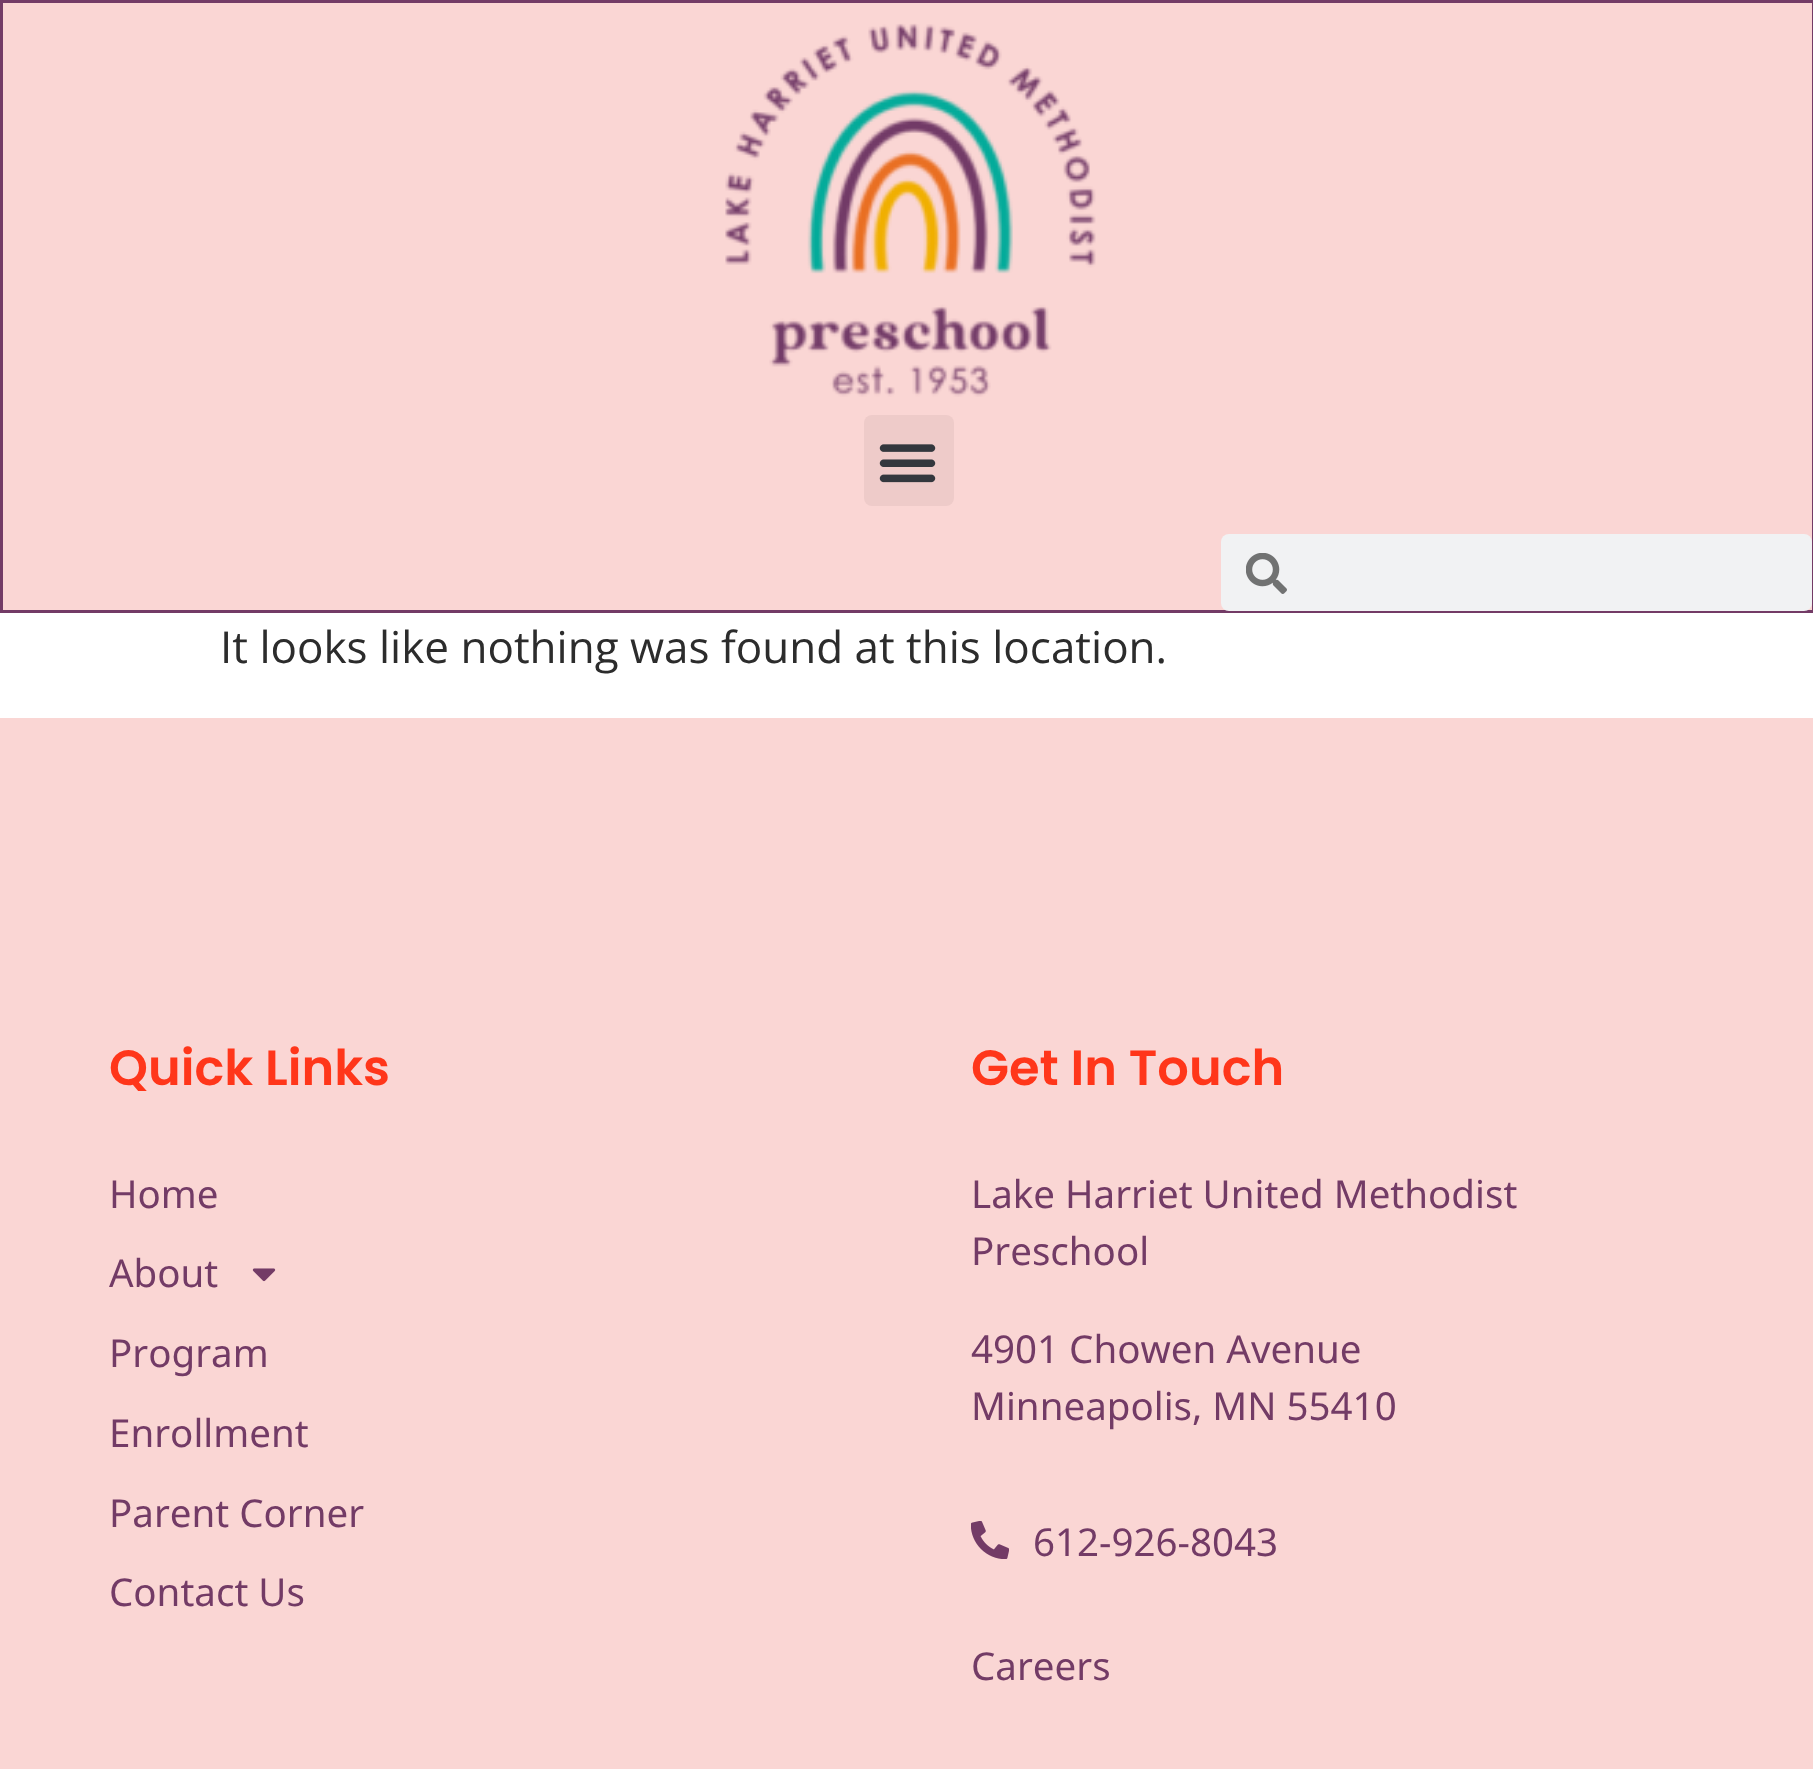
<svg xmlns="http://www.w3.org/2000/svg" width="1813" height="1769">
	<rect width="100%" height="100%" fill="#FFFFFF" />
	<rect x="1.5" y="1.5" width="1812" height="610" fill="#FAD6D4" stroke="#733B66" stroke-width="3" />
	<image x="725" y="23" width="371" height="374" href="assets/img1.png" />
	<rect x="864" y="415" width="90" height="91" rx="8" fill="#EECBC9" />
	<image x="879" y="444" width="57" height="39" href="assets/img2.png" />
	<rect x="1221" y="534" width="591" height="77" rx="8" fill="#F1F2F3" />
	<image x="1246" y="553" width="41" height="41" href="assets/img3.png" />
	<text x="220" y="663" font-family="Open Sans" font-size="44" fill="#2C2C2C">It looks like nothing was found at this location.</text>
	<rect x="0" y="718" width="1813" height="1051" fill="#FAD6D4" />
	<text x="109" y="1085" font-family="Poppins" font-size="49.5" font-weight="600" fill="#FF361A">Quick Links</text>
	<g font-family="Noto Sans Gothic" font-size="38.5" fill="#733B66">
		<text x="109" y="1208">Home</text>
		<text x="109" y="1287">About</text>
	</g>
	<image x="252" y="1268" width="24" height="14" href="assets/img4.png" />
	<g font-family="Noto Sans Gothic" font-size="38.5" fill="#733B66">
		<text x="109" y="1367">Program</text>
		<text x="109" y="1447">Enrollment</text>
		<text x="109" y="1527">Parent Corner</text>
		<text x="109" y="1606">Contact Us</text>
	</g>
	<text x="971" y="1085" font-family="Poppins" font-size="49.5" font-weight="600" fill="#FF361A">Get In Touch</text>
	<g font-family="Noto Sans Gothic" font-size="38.5" fill="#733B66">
		<text x="971" y="1208">Lake Harriet United Methodist</text>
		<text x="971" y="1265">Preschool</text>
		<text x="971" y="1363">4901 Chowen Avenue</text>
		<text x="971" y="1420">Minneapolis, MN 55410</text>
	</g>
	<image x="971" y="1521" width="38" height="38" href="assets/img5.png" />
	<g font-family="Noto Sans Gothic" font-size="38.5" fill="#733B66">
		<text x="1033" y="1556">612-926-8043</text>
		<text x="971" y="1680">Careers</text>
	</g>
</svg>
